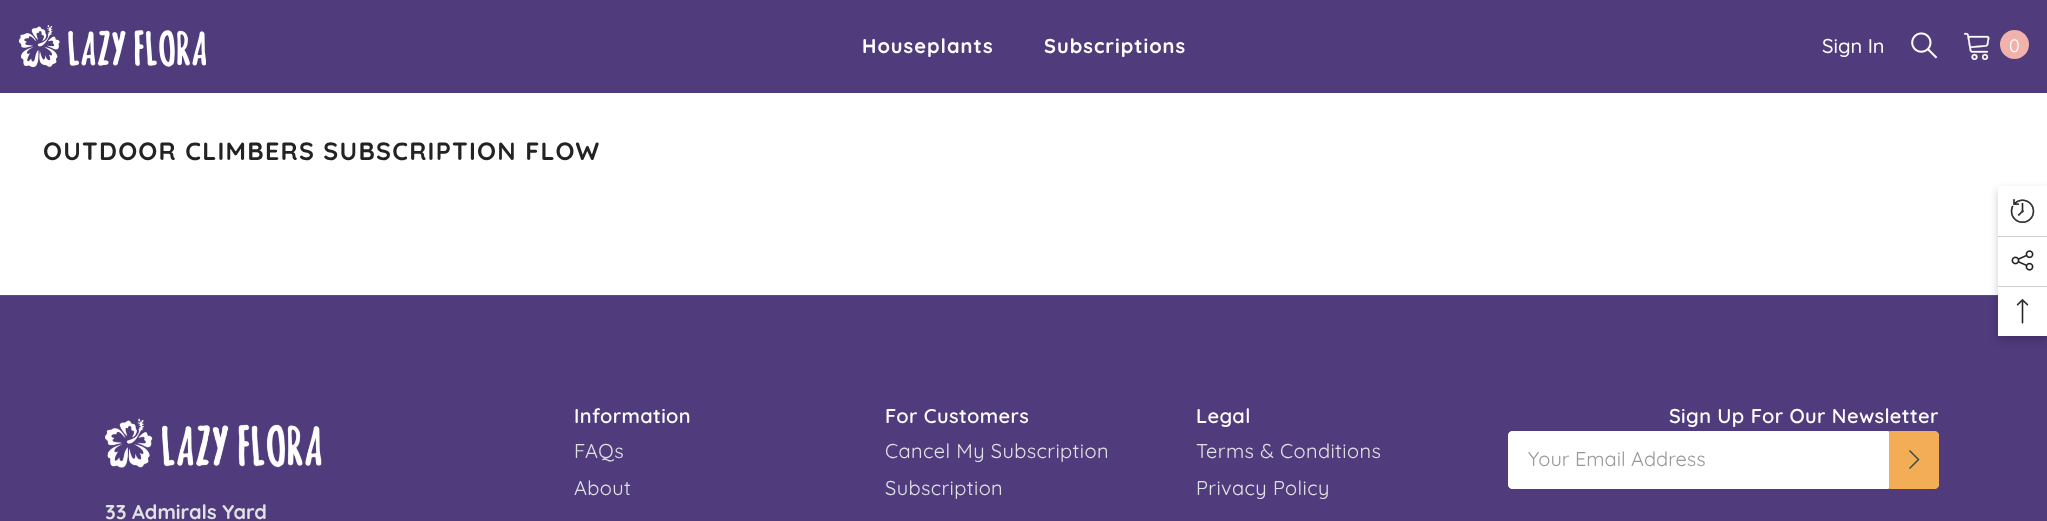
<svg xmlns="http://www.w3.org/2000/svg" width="2047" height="521">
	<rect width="100%" height="100%" fill="#FFFFFF" />
	<rect x="0" y="0" width="2047" height="93" fill="#503B7D" />
	<image x="19" y="25" width="187" height="43" href="assets/img1.png" />
	<g font-family="Quicksand" font-size="20" font-weight="700" letter-spacing="1" fill="#FFFFFF">
		<text x="862" y="53">Houseplants</text>
		<text x="1044" y="53">Subscriptions</text>
	</g>
	<text x="1822" y="53" font-family="Quicksand" font-size="20" font-weight="500" fill="#FFFFFF">Sign In</text>
	<image x="1911" y="32" width="27" height="27" href="assets/img2.png" />
	<image x="1963" y="32" width="27" height="28" href="assets/img3.png" />
	<circle cx="2014.5" cy="44.5" r="14.5" fill="#F1B2AB" />
	<text x="2009" y="52" font-family="Quicksand" font-size="18" fill="#FFFFFF">0</text>
	<text x="43" y="160" font-family="Quicksand" font-size="25" font-weight="700" letter-spacing="1.25" fill="#232323">OUTDOOR CLIMBERS SUBSCRIPTION FLOW</text>
	<rect x="0" y="296" width="2047" height="225" fill="#503B7D" />
	<rect x="0" y="295" width="1998" height="1" fill="#445C60" />
	<text x="574" y="423" font-family="Quicksand" font-size="20" font-weight="600" letter-spacing="0.4" fill="#FFFFFF">Information</text>
	<g font-family="Quicksand" font-size="20" letter-spacing="0.4" fill="#E0E3E3">
		<text x="574" y="458">FAQs</text>
		<text x="574" y="495">About</text>
	</g>
	<text x="885" y="423" font-family="Quicksand" font-size="20" font-weight="600" letter-spacing="0.4" fill="#FFFFFF">For Customers</text>
	<g font-family="Quicksand" font-size="20" letter-spacing="0.4" fill="#E0E3E3">
		<text x="885" y="458">Cancel My Subscription</text>
		<text x="885" y="495">Subscription</text>
	</g>
	<text x="1196" y="423" font-family="Quicksand" font-size="20" font-weight="600" letter-spacing="0.4" fill="#FFFFFF">Legal</text>
	<g font-family="Quicksand" font-size="20" letter-spacing="0.4" fill="#E0E3E3">
		<text x="1196" y="458">Terms &amp; Conditions</text>
		<text x="1196" y="495">Privacy Policy</text>
	</g>
	<text x="1669" y="423" font-family="Quicksand" font-size="20" font-weight="600" letter-spacing="0.4" fill="#FFFFFF">Sign Up For Our Newsletter</text>
	<path d="M1512 431.5H1888.5V488.5H1512C1510 488.5 1508.5 487 1508.5 485V435C1508.5 433 1510 431.5 1512 431.5Z" fill="#FFFFFF" stroke="#FFFFFF" />
	<text x="1528" y="466" font-family="Quicksand" font-size="20" fill="#999999">Your Email Address</text>
	<path d="M1889.5 431.5H1935C1937 431.5 1938.5 433 1938.5 435V485C1938.5 487 1937 488.5 1935 488.5H1889.5Z" fill="#F4AD57" stroke="#F4AD57" />
	<path d="M1910 450L1909 451L1917.5 459.5L1909 468L1910 469L1919.5 459.5Z" fill="#2F4A4E" />
	<image x="105" y="418" width="217" height="50" href="assets/img4.png" />
	<text x="105" y="519" font-family="Quicksand" font-size="20" font-weight="700" fill="#E0E3E3">33 Admirals Yard</text>
	<rect x="1998" y="190" width="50" height="150" fill="#000000" fill-opacity="0.2" filter="blur(4.5px)" />
	<rect x="1998" y="186" width="49" height="150" fill="#FFFFFF" />
	<image x="2010" y="199" width="25" height="24" href="assets/img5.png" />
	<rect x="1998" y="236" width="49" height="1" fill="#CCCCCC" />
	<image x="2011" y="250" width="23" height="21" href="assets/img6.png" />
	<rect x="1998" y="286" width="49" height="1" fill="#CCCCCC" />
	<image x="2016" y="299" width="13" height="25" href="assets/img7.png" />
</svg>
